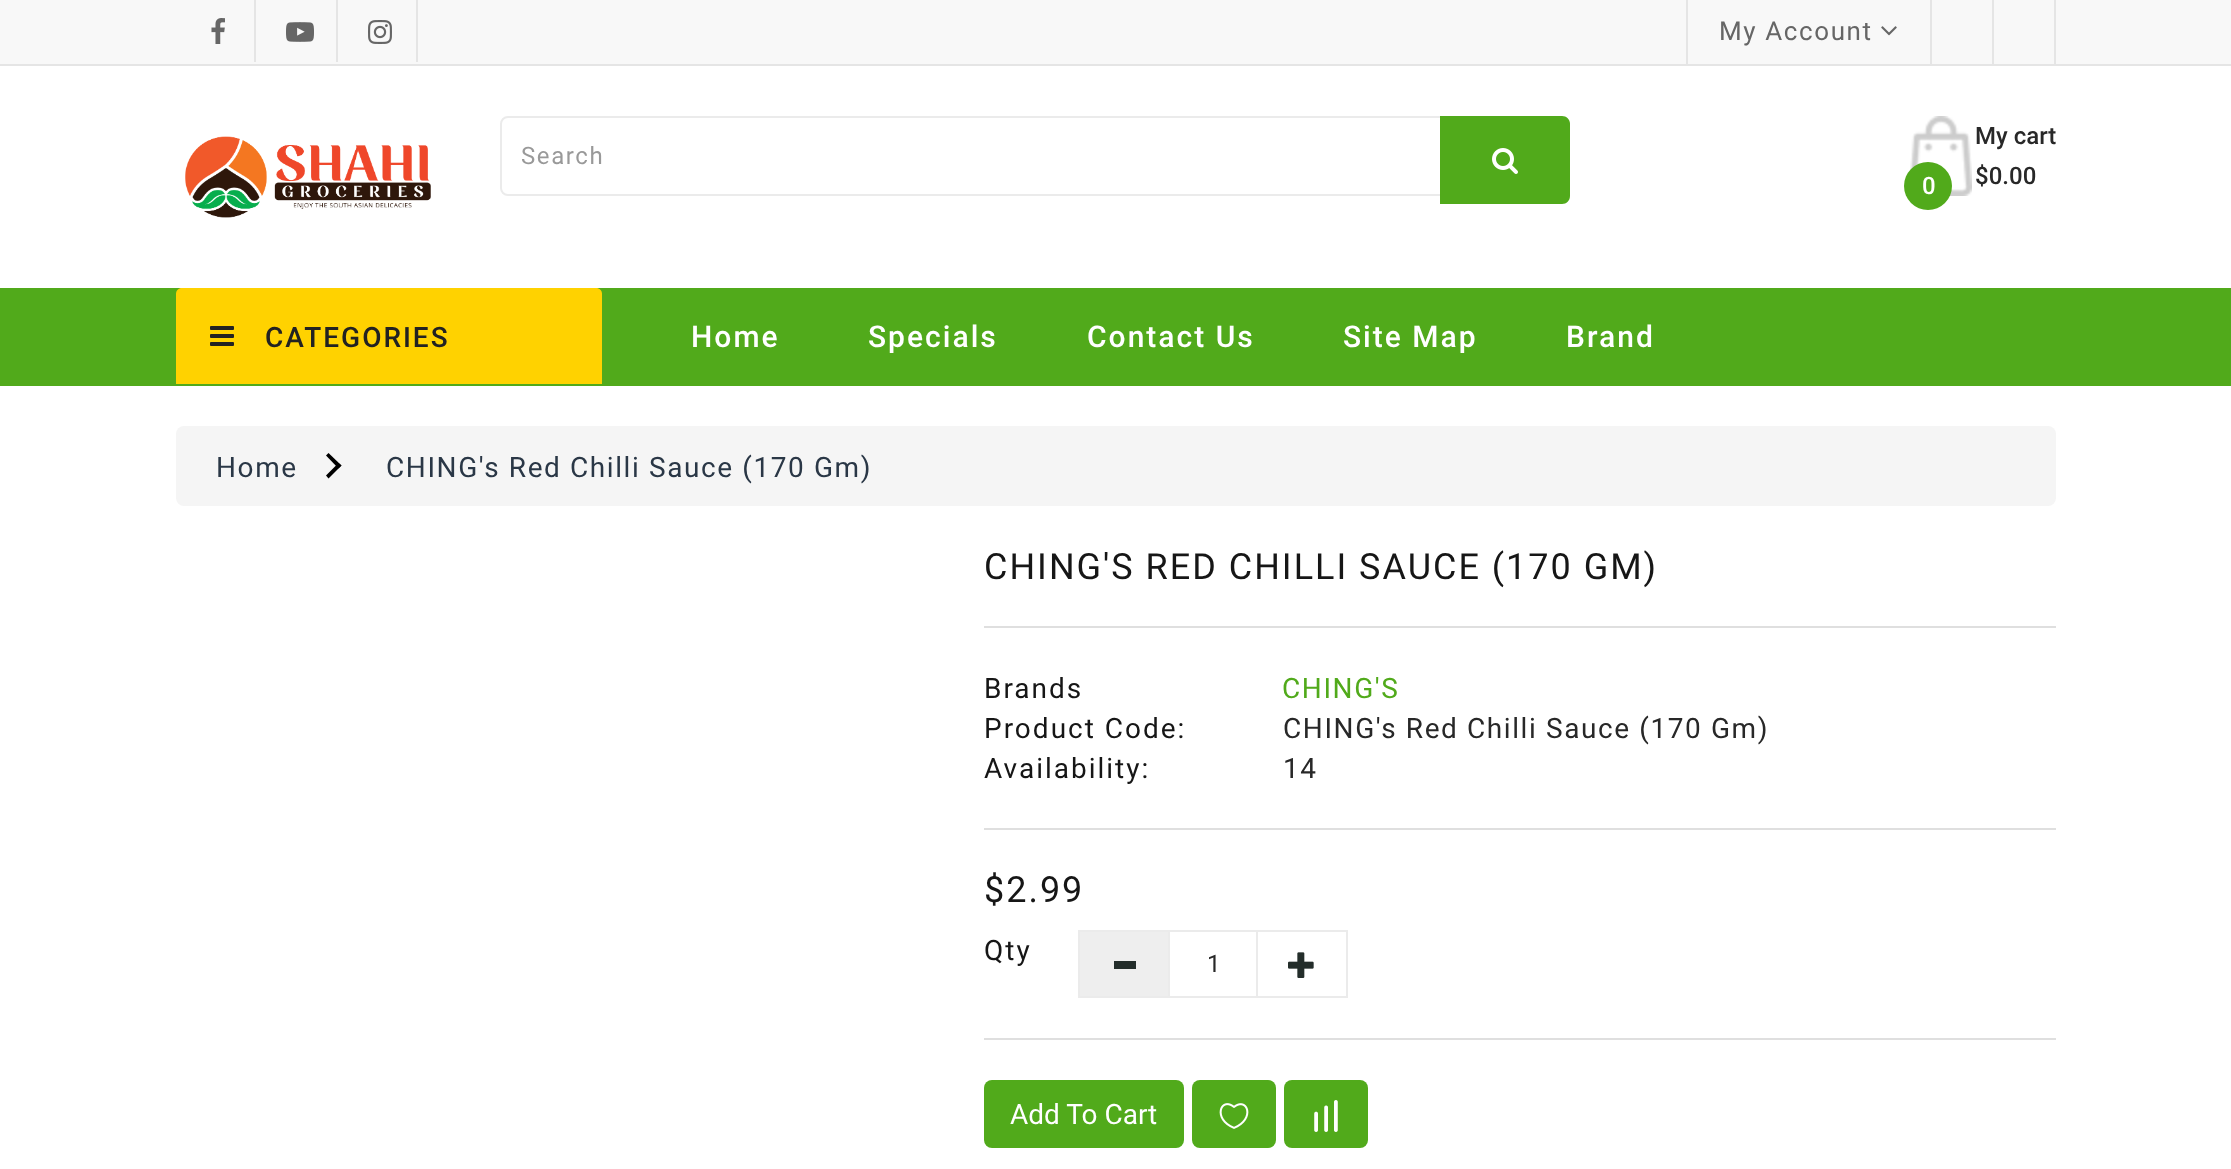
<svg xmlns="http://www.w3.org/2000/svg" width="2231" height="1169">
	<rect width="100%" height="100%" fill="#FFFFFF" />
	<rect x="0" y="0" width="2231" height="64" fill="#F8F8F8" />
	<rect x="0" y="64" width="2231" height="2" fill="#E5E5E5" />
	<rect x="254" y="0" width="2" height="62" fill="#E5E5E5" />
	<image x="211" y="18" width="14" height="26" href="assets/img1.png" />
	<rect x="336" y="0" width="2" height="62" fill="#E5E5E5" />
	<image x="286" y="22" width="28" height="20" href="assets/img2.png" />
	<rect x="416" y="0" width="2" height="62" fill="#E5E5E5" />
	<image x="368" y="20" width="24" height="24" href="assets/img3.png" />
	<rect x="1686" y="0" width="2" height="64" fill="#E5E5E5" />
	<text x="1719" y="40" font-family="Roboto" font-size="26" letter-spacing="1.6" fill="#666666">My Account</text>
	<image x="1881" y="26" width="16" height="10" href="assets/img4.png" />
	<rect x="1930" y="0" width="2" height="64" fill="#E5E5E5" />
	<rect x="2054" y="0" width="2" height="64" fill="#E5E5E5" />
	<rect x="1992" y="0" width="2" height="64" fill="#E5E5E5" />
	<image x="185" y="136" width="246" height="82" href="assets/img5.png" />
	<path d="M508 117H1441V195H508C504 195 501 192 501 188V124C501 120 504 117 508 117Z" fill="none" stroke="#EBEBEB" stroke-width="2" />
	<text x="521" y="164" font-family="Roboto" font-size="24" letter-spacing="1.6" fill="#999999">Search</text>
	<path d="M1440 116H1562C1566.5 116 1570 119.5 1570 124V196C1570 200.5 1566.5 204 1562 204H1440Z" fill="#51AA1B" />
	<image x="1492" y="148" width="26" height="26" href="assets/img6.png" />
	<image x="1910" y="116" width="62" height="80" href="assets/img7.png" />
	<text x="1975" y="144" font-family="Roboto" font-size="24" font-weight="500" fill="#282828">My cart</text>
	<circle cx="1928" cy="186" r="24" fill="#51AA1B" />
	<text x="1922" y="194" font-family="Roboto" font-size="24" font-weight="500" fill="#FFFFFF">0</text>
	<text x="1975" y="184" font-family="Roboto" font-size="24" font-weight="500" fill="#282828">$0.00</text>
	<rect x="0" y="288" width="2231" height="98" fill="#51AA1B" />
	<path d="M182 288H596C599.5 288 602 290.5 602 294V384H176V294C176 290.5 178.5 288 182 288Z" fill="#FFD200" />
	<image x="210" y="326" width="24" height="20" href="assets/img8.png" />
	<text x="265" y="347" font-family="Roboto" font-size="28" font-weight="500" letter-spacing="2" fill="#222222">CATEGORIES</text>
	<g font-family="Roboto" font-size="30" font-weight="500" letter-spacing="2" fill="#FFFFFF">
		<text x="691" y="347">Home</text>
		<text x="868" y="347">Specials</text>
		<text x="1087" y="347">Contact Us</text>
		<text x="1343" y="347">Site Map</text>
		<text x="1566" y="347">Brand</text>
	</g>
	<rect x="176" y="426" width="1880" height="80" rx="8" fill="#F5F5F5" />
	<text x="216" y="477" font-family="Roboto" font-size="28" letter-spacing="1.6" fill="#2A3746">Home</text>
	<path d="M326 455.5L328.5 453L341.5 465.5L338.5 468.5Z" fill="#000000" />
	<path d="M326 475.5L338.5 463L341.5 465.5L328.5 478.5Z" fill="#000000" />
	<text x="386" y="477" font-family="Roboto" font-size="28" letter-spacing="1.6" fill="#2A3746">CHING's Red Chilli Sauce (170 Gm)</text>
	<text x="984" y="579" font-family="Roboto" font-size="36" letter-spacing="2" fill="#161616">CHING'S RED CHILLI SAUCE (170 GM)</text>
	<rect x="984" y="626" width="1072" height="2" fill="#DFDFDF" />
	<text x="984" y="698" font-family="Roboto" font-size="28" letter-spacing="2" fill="#161616">Brands</text>
	<text x="1282" y="698" font-family="Roboto" font-size="28" letter-spacing="1.6" fill="#51AA1B">CHING'S</text>
	<text x="984" y="738" font-family="Roboto" font-size="28" letter-spacing="2" fill="#161616">Product Code:</text>
	<text x="1283" y="738" font-family="Roboto" font-size="28" letter-spacing="1.6" fill="#282828">CHING's Red Chilli Sauce (170 Gm)</text>
	<text x="984" y="778" font-family="Roboto" font-size="28" letter-spacing="2" fill="#161616">Availability:</text>
	<text x="1283" y="778" font-family="Roboto" font-size="28" letter-spacing="1.6" fill="#282828">14</text>
	<rect x="984" y="828" width="1072" height="2" fill="#DFDFDF" />
	<text x="984" y="902" font-family="Roboto" font-size="36" letter-spacing="2" fill="#161616">$2.99</text>
	<text x="984" y="960" font-family="Roboto" font-size="28" letter-spacing="2" fill="#161616">Qty</text>
	<rect x="1080" y="932" width="88" height="64" fill="#EEEEEE" />
	<rect x="1078" y="930" width="90" height="2" fill="#EBEBEB" />
	<rect x="1078" y="996" width="90" height="2" fill="#EBEBEB" />
	<rect x="1078" y="930" width="2" height="68" fill="#EBEBEB" />
	<rect x="1114" y="961" width="22" height="8" fill="#232D2A" />
	<rect x="1169" y="931" width="88" height="66" fill="none" stroke="#EBEBEB" stroke-width="2" />
	<text x="1207" y="972" font-family="Roboto" font-size="24" fill="#282828">1</text>
	<rect x="1258" y="930" width="90" height="2" fill="#EBEBEB" />
	<rect x="1346" y="930" width="2" height="68" fill="#EBEBEB" />
	<rect x="1258" y="996" width="90" height="2" fill="#EBEBEB" />
	<image x="1288" y="952" width="26" height="26" href="assets/img9.png" />
	<rect x="984" y="1038" width="1072" height="2" fill="#DFDFDF" />
	<rect x="984" y="1080" width="200" height="68" rx="8" fill="#51AA1B" />
	<text x="1010" y="1124" font-family="Roboto" font-size="28" fill="#FFFFFF">Add To Cart</text>
	<rect x="1192" y="1080" width="84" height="68" rx="8" fill="#51AA1B" />
	<image x="1219" y="1103" width="30" height="26" href="assets/img10.png" />
	<rect x="1284" y="1080" width="84" height="68" rx="8" fill="#51AA1B" />
	<image x="1314" y="1100" width="24" height="32" href="assets/img11.png" />
</svg>
